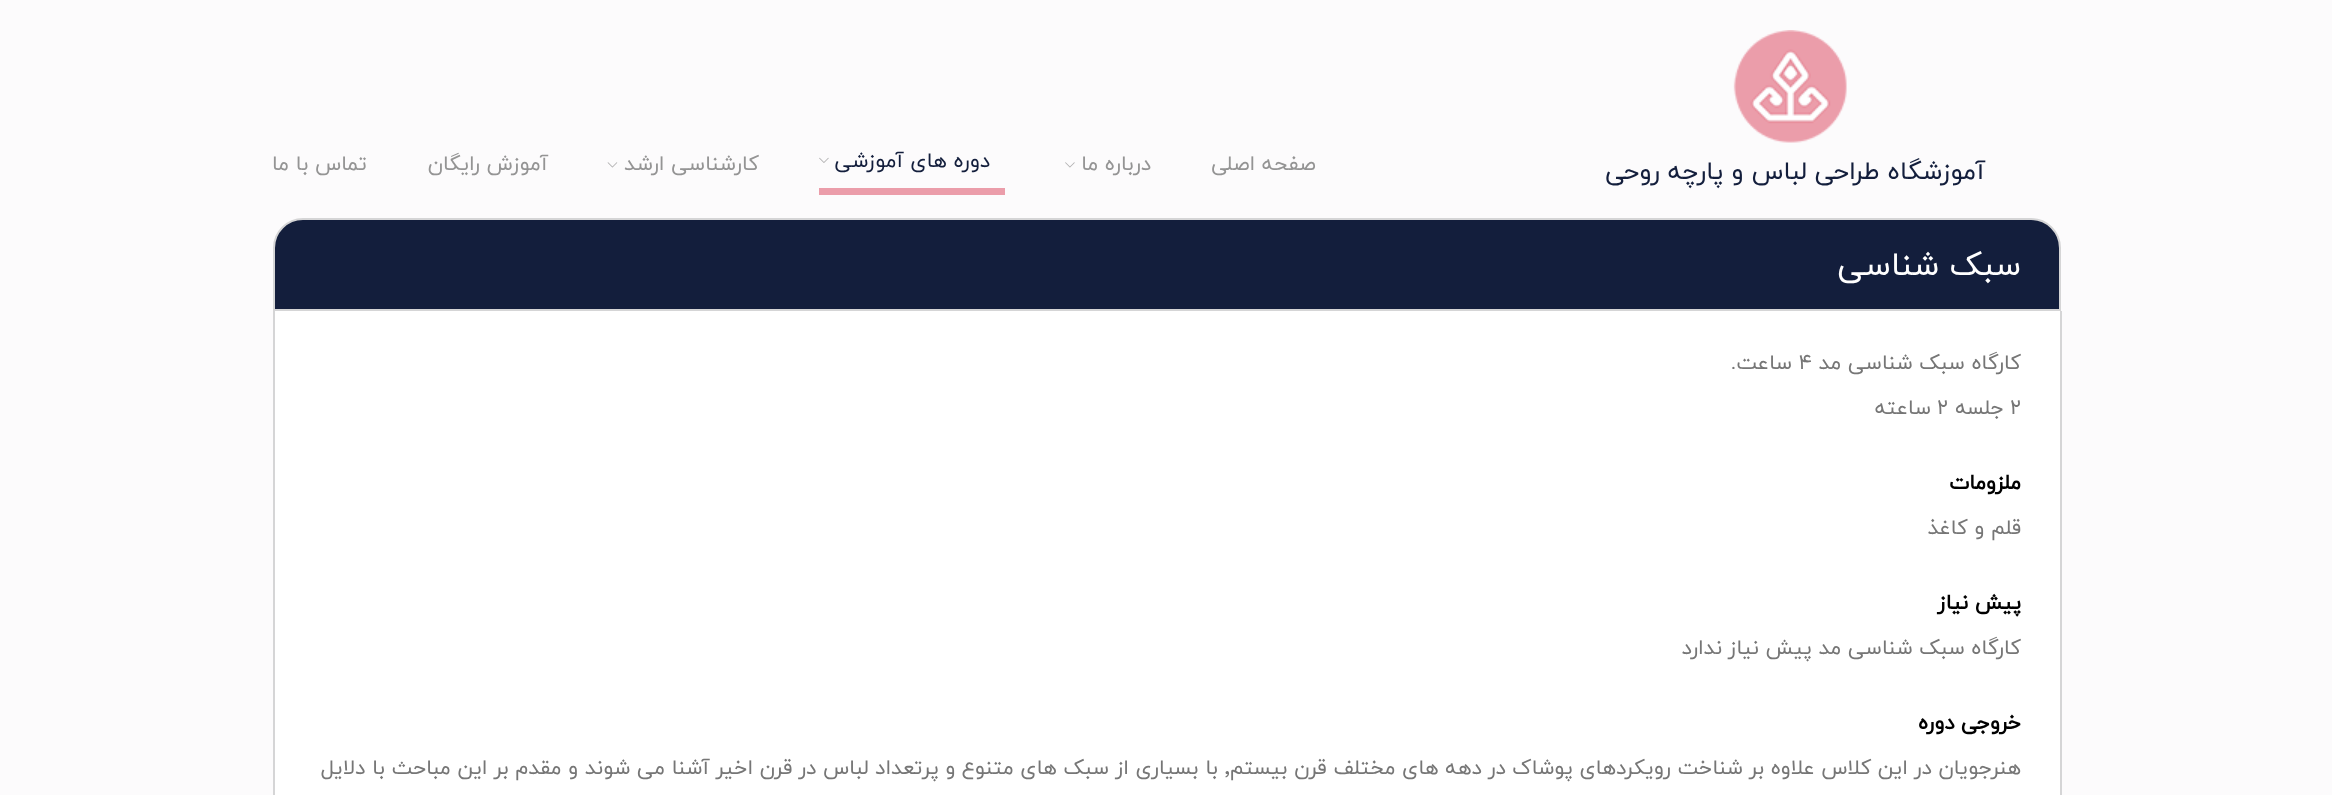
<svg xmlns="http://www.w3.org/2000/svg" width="2332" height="795">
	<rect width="100%" height="100%" fill="#FCFBFC" />
	<image x="1733" y="30" width="114" height="113" href="assets/img1.png" />
	<text x="1985" y="179" font-family="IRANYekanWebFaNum" font-size="25.5" direction="rtl" fill="#131E3C">آموزشگاه طراحی لباس و پارچه روحی</text>
	<g font-family="IRANYekanWebFaNum" font-size="21" direction="rtl" fill="#949494">
		<text x="1316" y="170">صفحه اصلی</text>
		<text x="1151" y="170">درباره ما</text>
	</g>
	<image x="1065" y="162" width="10" height="6" href="assets/img2.png" />
	<rect x="819" y="188" width="186" height="7" fill="#EB9DAA" />
	<text x="990" y="167" font-family="IRANYekanWebFaNum" font-size="21" direction="rtl" fill="#131E3C">دوره های آموزشی</text>
	<image x="819" y="157" width="10" height="6" href="assets/img3.png" />
	<text x="759" y="170" font-family="IRANYekanWebFaNum" font-size="21" direction="rtl" fill="#949494">کارشناسی ارشد</text>
	<image x="607" y="162" width="11" height="6" href="assets/img4.png" />
	<g font-family="IRANYekanWebFaNum" font-size="21" direction="rtl" fill="#949494">
		<text x="548" y="170">آموزش رایگان</text>
		<text x="367" y="170">تماس با ما</text>
	</g>
	<path d="M303 219H2031C2047 219 2060 232 2060 248V310H274V248C274 232 287 219 303 219Z" fill="#131E3C" stroke="#D5D5D6" stroke-width="2" />
	<text x="2021" y="275" font-family="IRANYekanWebFaNum" font-size="33" direction="rtl" fill="#FFFFFF">سبک شناسی</text>
	<rect x="275" y="311" width="1785" height="484" fill="#FFFFFF" />
	<rect x="2060" y="311" width="2" height="484" fill="#D5D5D6" />
	<rect x="273" y="311" width="2" height="484" fill="#D5D5D6" />
	<text x="2021" y="369" font-family="IRANYekanWebFaNum" font-size="21" direction="rtl" fill="#767676">کارگاه سبک شناسی مد</text>
	<text x="1799" y="369" font-family="IRANYekanWebFaNum" font-size="21" fill="#767676">۴</text>
	<text x="1792" y="369" font-family="IRANYekanWebFaNum" font-size="21" direction="rtl" fill="#767676">ساعت.</text>
	<text x="2010" y="414" font-family="IRANYekanWebFaNum" font-size="21" fill="#767676">۲</text>
	<text x="2004" y="414" font-family="IRANYekanWebFaNum" font-size="21" direction="rtl" fill="#767676">جلسه</text>
	<text x="1937" y="414" font-family="IRANYekanWebFaNum" font-size="21" fill="#767676">۲</text>
	<text x="1931" y="414" font-family="IRANYekanWebFaNum" font-size="21" direction="rtl" fill="#767676">ساعته</text>
	<text x="2021" y="489" font-family="IRANYekanWebFaNum" font-size="21" font-weight="700" direction="rtl" fill="#000000">ملزومات</text>
	<text x="2021" y="534" font-family="IRANYekanWebFaNum" font-size="21" direction="rtl" fill="#767676">قلم و کاغذ</text>
	<text x="2021" y="609" font-family="IRANYekanWebFaNum" font-size="21" font-weight="700" direction="rtl" fill="#000000">پیش نیاز</text>
	<text x="2021" y="654" font-family="IRANYekanWebFaNum" font-size="21" direction="rtl" fill="#767676">کارگاه سبک شناسی مد پیش نیاز ندارد</text>
	<text x="2021" y="729" font-family="IRANYekanWebFaNum" font-size="21" font-weight="700" direction="rtl" fill="#000000">خروجی دوره</text>
	<text x="2021" y="774" font-family="IRANYekanWebFaNum" font-size="21" direction="rtl" fill="#767676">هنرجویان در این کلاس علاوه بر شناخت رویکردهای پوشاک در دهه های مختلف قرن بیستم</text>
	<text x="1225" y="774" font-family="IRANYekanWebFaNum" font-size="21" fill="#767676">٬</text>
	<text x="1218" y="774" font-family="IRANYekanWebFaNum" font-size="21" direction="rtl" fill="#767676">با بسیاری از سبک های متنوع و پرتعداد لباس در قرن اخیر آشنا می شوند و مقدم بر این مباحث با دلایل</text>
</svg>
